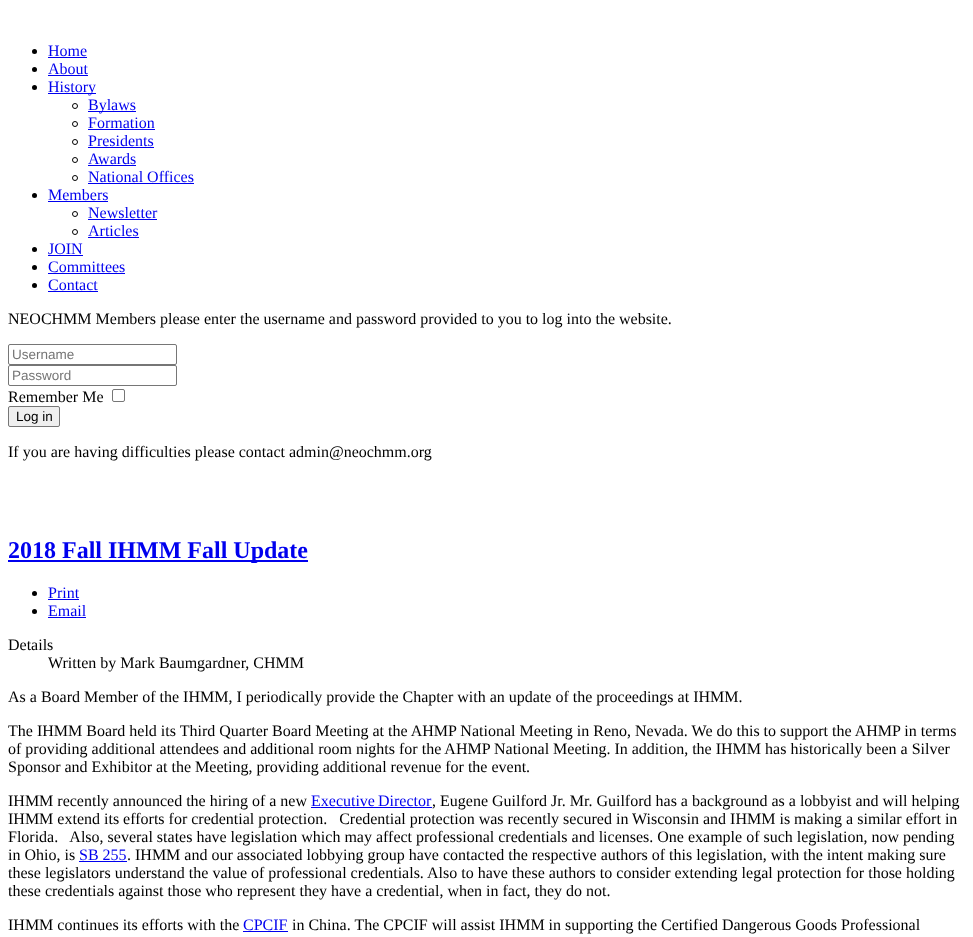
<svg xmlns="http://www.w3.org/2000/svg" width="973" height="937">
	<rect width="100%" height="100%" fill="#FFFFFF" />
	<circle cx="34.5" cy="51.5" r="2.5" fill="#000000" />
	<text x="48" y="56" font-family="Liberation Serif" font-size="16" fill="#0000EE">Home</text>
	<rect x="48" y="57" width="39" height="1" fill="#0000EE" />
	<circle cx="34.5" cy="69.5" r="2.5" fill="#000000" />
	<text x="48" y="74" font-family="Liberation Serif" font-size="16" fill="#0000EE">About</text>
	<rect x="48" y="75" width="40" height="1" fill="#0000EE" />
	<circle cx="34.5" cy="87.5" r="2.5" fill="#000000" />
	<rect x="48" y="93" width="48" height="1" fill="#0000EE" />
	<text x="48" y="92" font-family="Liberation Serif" font-size="16" fill="#0000EE">History</text>
	<circle cx="75" cy="106" r="2.5" fill="none" stroke="#000000" />
	<rect x="88" y="111" width="48" height="1" fill="#0000EE" />
	<text x="88" y="110" font-family="Liberation Serif" font-size="16" fill="#0000EE">Bylaws</text>
	<circle cx="75" cy="124" r="2.5" fill="none" stroke="#000000" />
	<text x="88" y="128" font-family="Liberation Serif" font-size="16" fill="#0000EE">Formation</text>
	<rect x="88" y="129" width="67" height="1" fill="#0000EE" />
	<circle cx="75" cy="142" r="2.5" fill="none" stroke="#000000" />
	<text x="88" y="146" font-family="Liberation Serif" font-size="16" fill="#0000EE">Presidents</text>
	<rect x="88" y="147" width="66" height="1" fill="#0000EE" />
	<circle cx="75" cy="160" r="2.5" fill="none" stroke="#000000" />
	<text x="88" y="164" font-family="Liberation Serif" font-size="16" fill="#0000EE">Awards</text>
	<rect x="88" y="165" width="48" height="1" fill="#0000EE" />
	<circle cx="75" cy="178" r="2.5" fill="none" stroke="#000000" />
	<text x="88" y="182" font-family="Liberation Serif" font-size="16" fill="#0000EE">National Offices</text>
	<rect x="88" y="183" width="106" height="1" fill="#0000EE" />
	<circle cx="34.5" cy="195.5" r="2.5" fill="#000000" />
	<text x="48" y="200" font-family="Liberation Serif" font-size="16" fill="#0000EE">Members</text>
	<rect x="48" y="201" width="60" height="1" fill="#0000EE" />
	<circle cx="75" cy="214" r="2.5" fill="none" stroke="#000000" />
	<text x="88" y="218" font-family="Liberation Serif" font-size="16" fill="#0000EE">Newsletter</text>
	<rect x="88" y="219" width="69" height="1" fill="#0000EE" />
	<circle cx="75" cy="232" r="2.5" fill="none" stroke="#000000" />
	<text x="88" y="236" font-family="Liberation Serif" font-size="16" fill="#0000EE">Articles</text>
	<rect x="88" y="237" width="51" height="1" fill="#0000EE" />
	<circle cx="34.5" cy="249.5" r="2.5" fill="#000000" />
	<text x="48" y="254" font-family="Liberation Serif" font-size="16" fill="#0000EE">JOIN</text>
	<rect x="48" y="255" width="35" height="1" fill="#0000EE" />
	<circle cx="34.5" cy="267.5" r="2.5" fill="#000000" />
	<text x="48" y="272" font-family="Liberation Serif" font-size="16" fill="#0000EE">Committees</text>
	<rect x="48" y="273" width="77" height="1" fill="#0000EE" />
	<circle cx="34.5" cy="285.5" r="2.5" fill="#000000" />
	<text x="48" y="290" font-family="Liberation Serif" font-size="16" fill="#0000EE">Contact</text>
	<rect x="48" y="291" width="50" height="1" fill="#0000EE" />
	<text x="8" y="324" font-family="Liberation Serif" font-size="16" fill="#000000">NEOCHMM Members please enter the username and password provided to you to log into the website.</text>
	<rect x="8.5" y="344.5" width="168" height="20" rx="1.5" fill="none" stroke="#767676" />
	<text x="12" y="359" font-family="Liberation Sans" font-size="13.5" fill="#757575">Username</text>
	<rect x="8.5" y="365.5" width="168" height="20" rx="1.5" fill="none" stroke="#767676" />
	<text x="12" y="380" font-family="Liberation Sans" font-size="13.5" fill="#757575">Password</text>
	<text x="8" y="402" font-family="Liberation Serif" font-size="16" fill="#000000">Remember Me</text>
	<rect x="112.5" y="389.5" width="12" height="12" rx="1.5" fill="none" stroke="#767676" />
	<rect x="8.5" y="406.5" width="51" height="20" rx="1.5" fill="#EFEFEF" stroke="#767676" />
	<text x="16" y="421" font-family="Liberation Sans" font-size="13.5" fill="#000000">Log in</text>
	<text x="8" y="457" font-family="Liberation Serif" font-size="16" fill="#000000">If you are having difficulties please contact admin@neochmm.org</text>
	<rect x="8" y="560" width="300" height="2" fill="#0000EE" />
	<text x="8" y="558" font-family="Liberation Serif" font-size="24" font-weight="700" fill="#0000EE">2018 Fall IHMM Fall Update</text>
	<circle cx="34.5" cy="593.5" r="2.5" fill="#000000" />
	<text x="48" y="598" font-family="Liberation Serif" font-size="16" fill="#0000EE">Print</text>
	<rect x="48" y="599" width="31" height="1" fill="#0000EE" />
	<circle cx="34.5" cy="611.5" r="2.5" fill="#000000" />
	<text x="48" y="616" font-family="Liberation Serif" font-size="16" fill="#0000EE">Email</text>
	<rect x="48" y="617" width="38" height="1" fill="#0000EE" />
	<g font-family="Liberation Serif" font-size="16" fill="#000000">
		<text x="8" y="650">Details</text>
		<text x="48" y="668">Written by Mark Baumgardner, CHMM</text>
		<text x="8" y="702">As a Board Member of the IHMM, I periodically provide the Chapter with an update of the proceedings at IHMM.</text>
		<text x="8" y="736">The IHMM Board held its Third Quarter Board Meeting at the AHMP National Meeting in Reno, Nevada. We do this to support the AHMP in terms</text>
		<text x="8" y="754">of providing additional attendees and additional room nights for the AHMP National Meeting. In addition, the IHMM has historically been a Silver</text>
		<text x="8" y="772">Sponsor and Exhibitor at the Meeting, providing additional revenue for the event.</text>
		<text x="8" y="806">IHMM recently announced the hiring of a new</text>
	</g>
	<text x="311" y="806" word-spacing="-1" font-family="Liberation Serif" font-size="16" fill="#0000EE">Executive Director</text>
	<rect x="311" y="807" width="121" height="1" fill="#0000EE" />
	<g font-family="Liberation Serif" font-size="16" fill="#000000">
		<text x="432" y="806">, Eugene Guilford Jr. Mr. Guilford has a background as a lobbyist and will helping</text>
		<text x="8" y="824" xml:space="preserve">IHMM extend its efforts for credential protection.   Credential protection was recently secured in Wisconsin and IHMM is making a similar effort in</text>
		<text x="8" y="842" xml:space="preserve">Florida.   Also, several states have legislation which may affect professional credentials and licenses. One example of such legislation, now pending</text>
		<text x="8" y="860">in Ohio, is</text>
	</g>
	<text x="79" y="860" font-family="Liberation Serif" font-size="16" fill="#0000EE">SB 255</text>
	<rect x="79" y="861" width="48" height="1" fill="#0000EE" />
	<g font-family="Liberation Serif" font-size="16" fill="#000000">
		<text x="127" y="860">. IHMM and our associated lobbying group have contacted the respective authors of this legislation, with the intent making sure</text>
		<text x="8" y="878">these legislators understand the value of professional credentials. Also to have these authors to consider extending legal protection for those holding</text>
		<text x="8" y="896">these credentials against those who represent they have a credential, when in fact, they do not.</text>
		<text x="8" y="930">IHMM continues its efforts with the</text>
	</g>
	<text x="243" y="930" font-family="Liberation Serif" font-size="16" fill="#0000EE">CPCIF</text>
	<rect x="243" y="931" width="45" height="1" fill="#0000EE" />
	<text x="292" y="930" font-family="Liberation Serif" font-size="16" fill="#000000">in China. The CPCIF will assist IHMM in supporting the Certified Dangerous Goods Professional</text>
</svg>
